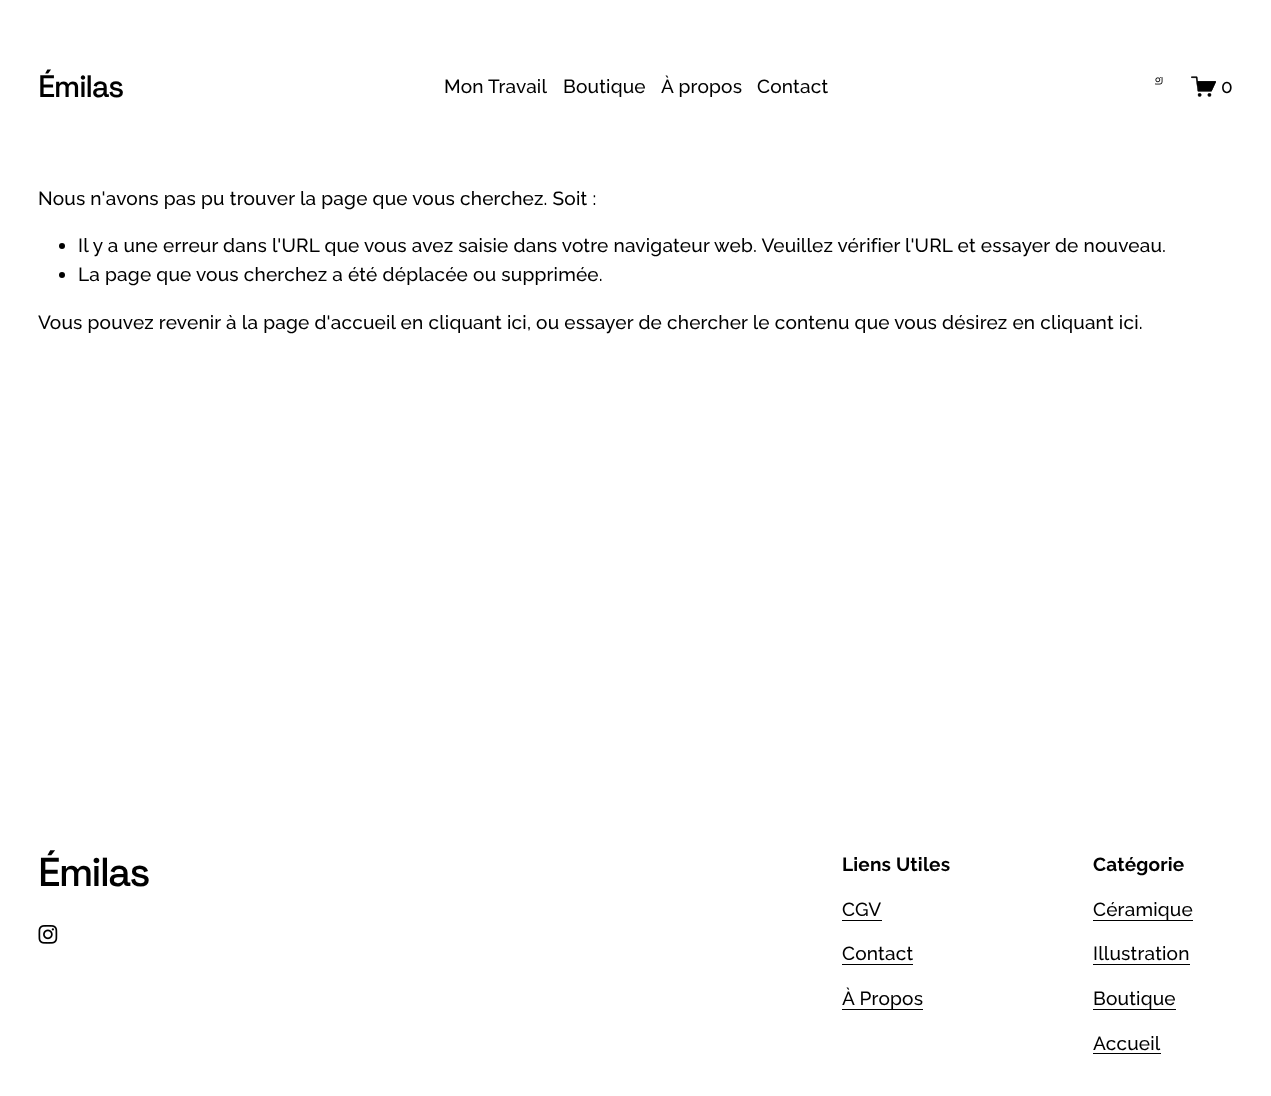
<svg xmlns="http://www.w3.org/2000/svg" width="1271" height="1096">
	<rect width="100%" height="100%" fill="#FFFFFF" />
	<text x="38" y="97" font-family="Space Grotesk" font-size="31" font-weight="500" letter-spacing="-1.5" fill="#000000">Émilas</text>
	<g font-family="Raleway" font-size="19.05" font-weight="500" letter-spacing="0.19" fill="#000000">
		<text x="444" y="93">Mon Travail</text>
		<text x="563" y="93">Boutique</text>
		<text x="661" y="93">À propos</text>
		<text x="757" y="93">Contact</text>
	</g>
	<image x="1155" y="77" width="8" height="8" href="assets/img1.png" />
	<image x="1191" y="76" width="25" height="21" href="assets/img2.png" />
	<g font-family="Raleway" font-size="19.05" font-weight="500" letter-spacing="0.19" fill="#000000">
		<text x="1221" y="93">0</text>
		<text x="38" y="205">Nous n'avons pas pu trouver la page que vous cherchez. Soit :</text>
	</g>
	<circle cx="62" cy="246" r="3" fill="#000000" />
	<text x="78" y="252" font-family="Raleway" font-size="19.05" font-weight="500" letter-spacing="0.19" fill="#000000">Il y a une erreur dans l'URL que vous avez saisie dans votre navigateur web. Veuillez vérifier l'URL et essayer de nouveau.</text>
	<circle cx="62" cy="275" r="3" fill="#000000" />
	<g font-family="Raleway" font-size="19.05" font-weight="500" letter-spacing="0.19" fill="#000000">
		<text x="78" y="281">La page que vous cherchez a été déplacée ou supprimée.</text>
		<text x="38" y="329">Vous pouvez revenir à la page d'accueil en cliquant ici, ou essayer de chercher le contenu que vous désirez en cliquant ici.</text>
	</g>
	<text x="38" y="886" font-family="Space Grotesk" font-size="40.5" font-weight="500" letter-spacing="-2" fill="#000000">Émilas</text>
	<text x="842" y="871" font-family="Raleway" font-size="19.05" font-weight="700" letter-spacing="0.19" fill="#000000">Liens Utiles</text>
	<text x="842" y="916" font-family="Raleway" font-size="19.05" font-weight="500" letter-spacing="0.19" fill="#000000">CGV</text>
	<rect x="842" y="920" width="40" height="1" fill="#000000" />
	<text x="842" y="960" font-family="Raleway" font-size="19.05" font-weight="500" letter-spacing="0.19" fill="#000000">Contact</text>
	<rect x="842" y="964" width="71" height="1" fill="#000000" />
	<rect x="842" y="1009" width="81" height="1" fill="#000000" />
	<text x="842" y="1005" font-family="Raleway" font-size="19.05" font-weight="500" letter-spacing="0.19" fill="#000000">À Propos</text>
	<text x="1093" y="871" font-family="Raleway" font-size="19.05" font-weight="700" letter-spacing="0.19" fill="#000000">Catégorie</text>
	<rect x="1093" y="920" width="100" height="1" fill="#000000" />
	<g font-family="Raleway" font-size="19.05" font-weight="500" letter-spacing="0.19" fill="#000000">
		<text x="1093" y="916">Céramique</text>
		<text x="1093" y="960">Illustration</text>
	</g>
	<rect x="1093" y="964" width="97" height="1" fill="#000000" />
	<rect x="1093" y="1009" width="83" height="1" fill="#000000" />
	<g font-family="Raleway" font-size="19.05" font-weight="500" letter-spacing="0.19" fill="#000000">
		<text x="1093" y="1005">Boutique</text>
		<text x="1093" y="1050">Accueil</text>
	</g>
	<rect x="1093" y="1053" width="68" height="1" fill="#000000" />
	<image x="38" y="925" width="20" height="19" href="assets/img3.png" />
</svg>
